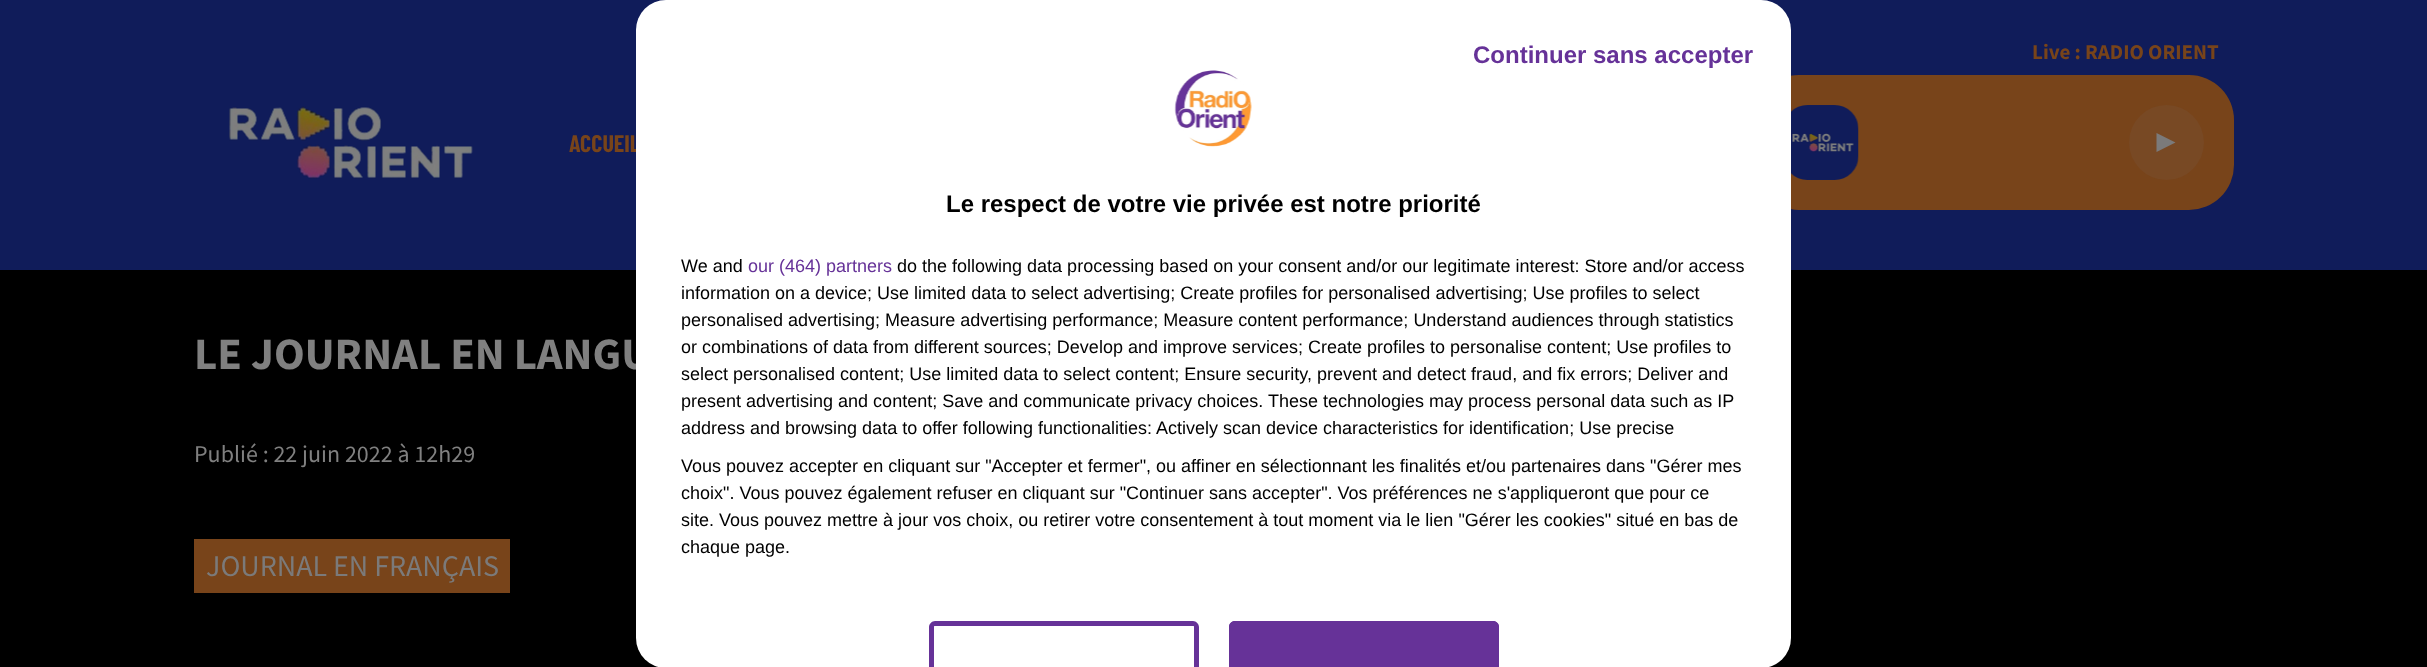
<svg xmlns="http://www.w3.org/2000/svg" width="2427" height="667">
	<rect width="100%" height="100%" fill="#000000" />
	<rect x="0" y="0" width="2427" height="270" fill="#101C5A" />
	<text x="2032" y="59" font-family="Source Sans Pro" font-size="21" font-weight="700" fill="#78441A">Live : RADIO ORIENT</text>
	<rect x="1754" y="75" width="480" height="135" rx="45" fill="#78441A" />
	<image x="1791" y="105" width="68" height="75" href="assets/img1.png" />
	<circle cx="2166.5" cy="142.5" r="37.5" fill="#784924" />
	<path d="M2175.5 142.5L2156.5 152V133Z" fill="#7B7A7A" />
	<image x="229" y="106" width="244" height="73" href="assets/img2.png" />
	<text x="569" y="152" font-family="Barlow Condensed" font-size="24" font-weight="700" fill="#78441A">ACCUEIL</text>
	<text x="194" y="369" font-family="Source Sans Pro" font-size="45" font-weight="700" fill="#808080">LE JOURNAL EN LANGU</text>
	<text x="194" y="462" font-family="Source Sans Pro" font-size="24" fill="#808080">Publié : 22 juin 2022 à 12h29</text>
	<rect x="194" y="539" width="316" height="54" fill="#78441A" />
	<text x="206" y="576" font-family="Source Sans Pro" font-size="30" fill="#7B7A7A">JOURNAL EN FRANÇAIS</text>
	<rect x="636" y="0" width="1155" height="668" rx="30" fill="#FFFFFF" />
	<text x="1473" y="63" font-family="Liberation Sans" font-size="24" font-weight="700" fill="#663298">Continuer sans accepter</text>
	<path d="M935 621C932 621 929 624 929 627V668H934V627C934 626 934 626 935 626H1193C1194 626 1194 626 1194 627V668H1199V627C1199 624 1196 621 1193 621Z" fill="#663298" />
	<path d="M1235 621H1493C1496.5 621 1499 623.5 1499 627V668H1229V627C1229 623.5 1231.5 621 1235 621Z" fill="#663298" />
	<path d="M1235 621C1232 621 1229 624 1229 627V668H1234V627C1234 626 1234 626 1235 626H1493C1494 626 1494 626 1494 627V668H1499V627C1499 624 1496 621 1493 621Z" fill="#663298" />
	<image x="1174" y="70" width="78" height="77" href="assets/img3.png" />
	<text x="946" y="212" font-family="Liberation Sans" font-size="24" font-weight="700" fill="#000000">Le respect de votre vie privée est notre priorité</text>
	<text x="681" y="272" font-family="Liberation Sans" font-size="18" fill="#000000">We and</text>
	<text x="748" y="272" font-family="Liberation Sans" font-size="18" fill="#663298">our (464) partners</text>
	<g font-family="Liberation Sans" font-size="18" fill="#000000">
		<text x="897" y="272">do the following data processing based on your consent and/or our legitimate interest: Store and/or access</text>
		<text x="681" y="299">information on a device; Use limited data to select advertising; Create profiles for personalised advertising; Use profiles to select</text>
		<text x="681" y="326">personalised advertising; Measure advertising performance; Measure content performance; Understand audiences through statistics</text>
		<text x="681" y="353">or combinations of data from different sources; Develop and improve services; Create profiles to personalise content; Use profiles to</text>
		<text x="681" y="380">select personalised content; Use limited data to select content; Ensure security, prevent and detect fraud, and fix errors; Deliver and</text>
		<text x="681" y="407">present advertising and content; Save and communicate privacy choices. These technologies may process personal data such as IP</text>
		<text x="681" y="434">address and browsing data to offer following functionalities: Actively scan device characteristics for identification; Use precise</text>
		<text x="681" y="472">Vous pouvez accepter en cliquant sur "Accepter et fermer", ou affiner en sélectionnant les finalités et/ou partenaires dans "Gérer mes</text>
		<text x="681" y="499">choix". Vous pouvez également refuser en cliquant sur "Continuer sans accepter". Vos préférences ne s'appliqueront que pour ce</text>
		<text x="681" y="526">site. Vous pouvez mettre à jour vos choix, ou retirer votre consentement à tout moment via le lien "Gérer les cookies" situé en bas de</text>
		<text x="681" y="553">chaque page.</text>
	</g>
</svg>
